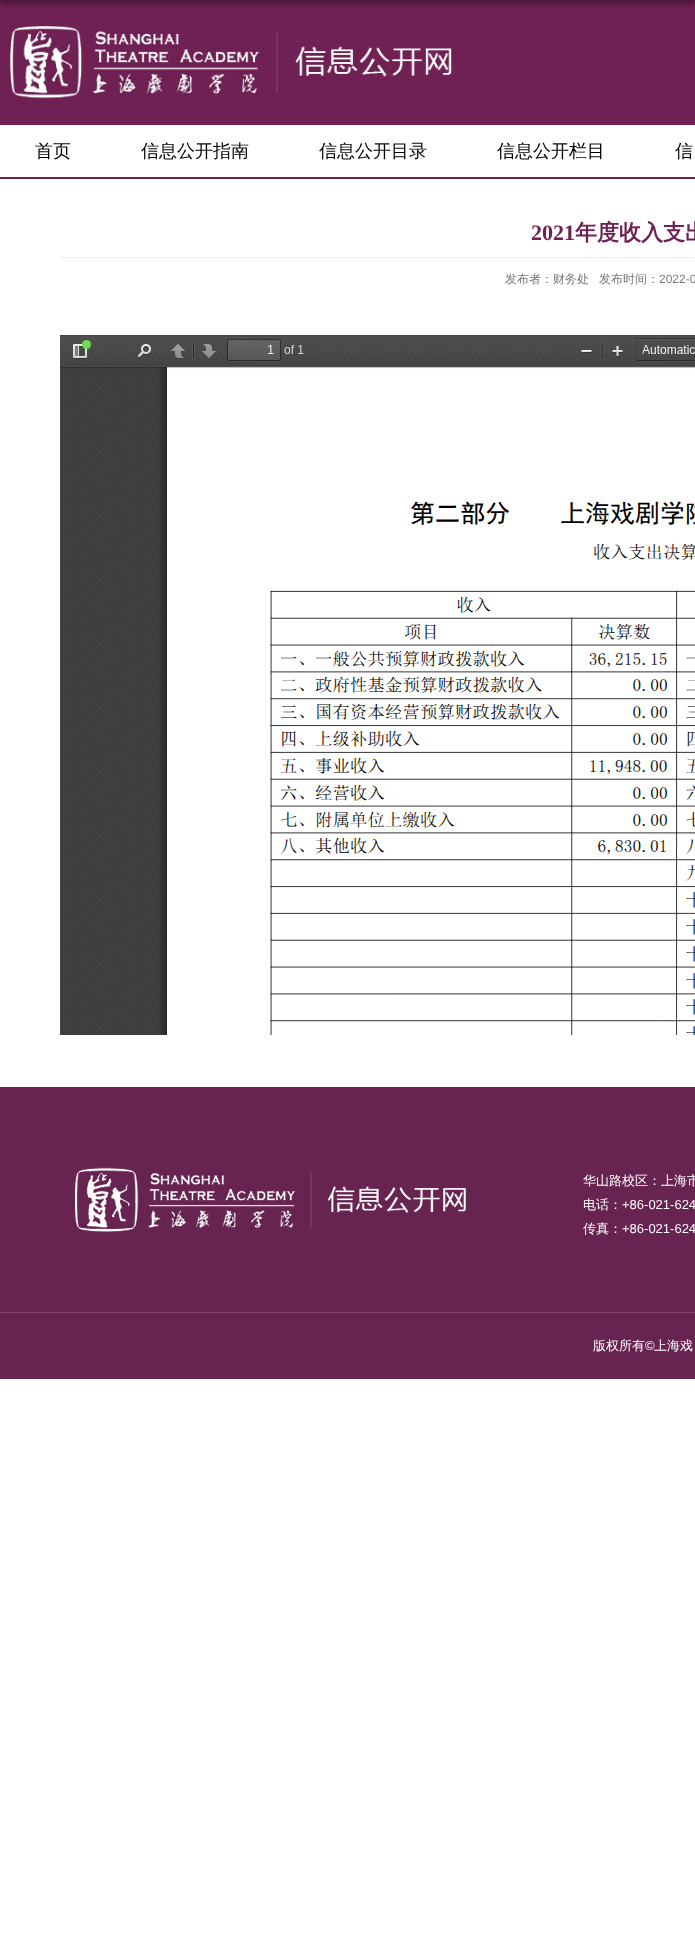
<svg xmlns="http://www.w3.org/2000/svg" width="695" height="1937">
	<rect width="100%" height="100%" fill="#FFFFFF" />
	<rect x="0" y="0" width="695" height="125" fill="#6F2153" />
	<image x="10" y="26" width="442" height="73" href="assets/img1.png" />
	<rect x="0" y="-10" width="695" height="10" fill="#000000" fill-opacity="0.8" filter="blur(5px)" />
	<rect x="0" y="177" width="695" height="2" fill="#682451" />
	<g font-family="WenQuanYi Zen Hei" font-size="18" font-weight="500" fill="#000000">
		<text x="35" y="157">首页</text>
		<text x="141" y="157">信息公开指南</text>
		<text x="319" y="157">信息公开目录</text>
		<text x="497" y="157">信息公开栏目</text>
		<text x="675" y="157">信</text>
	</g>
	<text x="531" y="240" font-family="Liberation Serif" font-size="22" font-weight="700" fill="#6F2153">2021</text>
	<text x="575" y="240" font-family="WenQuanYi Zen Hei" font-size="22" font-weight="700" fill="#6F2153">年度收入支出</text>
	<rect x="60" y="257" width="635" height="1" fill="#ECECEC" />
	<g font-family="WenQuanYi Zen Hei" font-size="12" font-weight="500" fill="#787878">
		<text x="505" y="283">发布者：财务处</text>
		<text x="599" y="283">发布时间：</text>
	</g>
	<text x="659" y="283" font-family="Liberation Sans" font-size="12" fill="#787878">2022-0</text>
	<image x="60" y="335" width="635" height="700" href="assets/img2.png" />
	<rect x="0" y="1087" width="695" height="292" fill="#682451" />
	<image x="75" y="1167" width="391" height="65" href="assets/img3.png" />
	<g font-family="WenQuanYi Zen Hei" font-size="13" font-weight="500" fill="#FFFFFF">
		<text x="583" y="1185">华山路校区：上海市</text>
		<text x="583" y="1209">电话：</text>
	</g>
	<text x="622" y="1209" font-family="Liberation Sans" font-size="13" fill="#FFFFFF">+86-021-624</text>
	<text x="583" y="1233" font-family="WenQuanYi Zen Hei" font-size="13" font-weight="500" fill="#FFFFFF">传真：</text>
	<text x="622" y="1233" font-family="Liberation Sans" font-size="13" fill="#FFFFFF">+86-021-624</text>
	<rect x="0" y="1312" width="695" height="1" fill="#7F456B" />
	<text x="593" y="1350" font-family="WenQuanYi Zen Hei" font-size="13" font-weight="500" fill="#FFFFFF">版权所有</text>
	<text x="645" y="1350" font-family="Liberation Sans" font-size="13" fill="#FFFFFF">©</text>
	<text x="654" y="1350" font-family="WenQuanYi Zen Hei" font-size="13" font-weight="500" fill="#FFFFFF">上海戏</text>
</svg>
